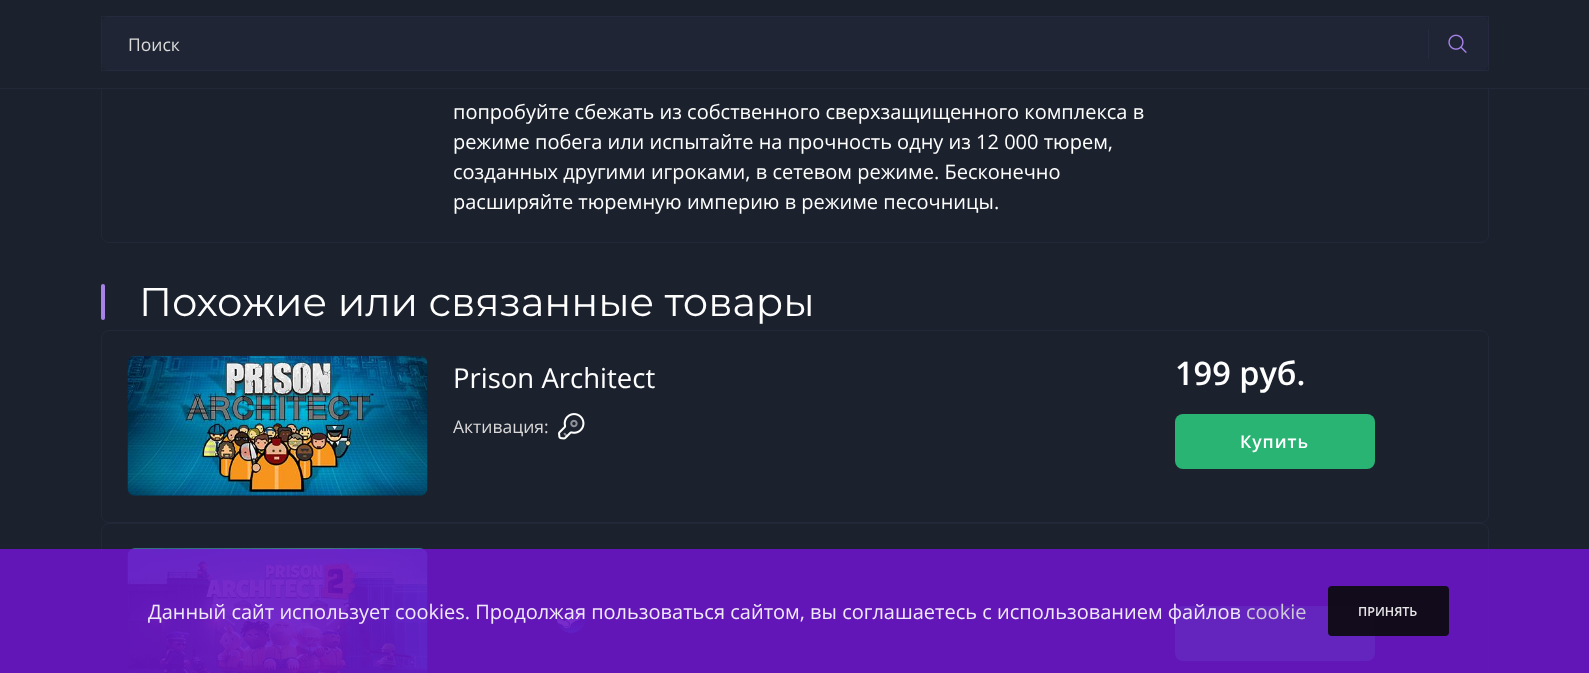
<svg xmlns="http://www.w3.org/2000/svg" width="1589" height="673">
	<rect width="100%" height="100%" fill="#1B222E" />
	<rect x="101.5" y="-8.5" width="1387" height="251" rx="7.5" fill="none" stroke="#232839" />
	<rect x="101" y="0" width="1388" height="88" fill="#1B222E" />
	<rect x="0" y="88" width="1589" height="1" fill="#232839" />
	<rect x="101" y="16" width="1388" height="55" rx="8" fill="#1F2534" />
	<rect x="101.5" y="16.5" width="1387" height="54" fill="none" stroke="#A782E9" stroke-opacity="0.06" />
	<text x="128" y="51" font-family="Open Sans" font-size="17.5" fill="#DBDADA">Поиск</text>
	<rect x="1428" y="29" width="1" height="30" fill="#272B3F" />
	<image x="1448" y="34" width="19" height="19" href="assets/img1.png" />
	<g font-family="Open Sans" font-size="20" fill="#FFFFFF">
		<text x="453" y="119">попробуйте сбежать из собственного сверхзащищенного комплекса в</text>
		<text x="453" y="149">режиме побега или испытайте на прочность одну из 12 000 тюрем,</text>
		<text x="453" y="179">созданных другими игроками, в сетевом режиме. Бесконечно</text>
		<text x="453" y="209">расширяйте тюремную империю в режиме песочницы.</text>
	</g>
	<rect x="101" y="284" width="4" height="36" rx="2" fill="#A782E9" />
	<text x="139" y="316" font-family="Montserrat" font-size="40" fill="#FFFFFF">Похожие или связанные товары</text>
	<rect x="101.5" y="330.5" width="1387" height="192" rx="7.5" fill="none" stroke="#232839" />
	<image x="127" y="355" width="301" height="141" href="assets/img2.png" />
	<text x="453" y="388" font-family="Open Sans" font-size="27.5" fill="#FFFFFF">Prison Architect</text>
	<text x="453" y="433" font-family="Open Sans" font-size="17.5" fill="#DBDADA">Активация:</text>
	<image x="558" y="413" width="27" height="27" href="assets/img3.png" />
	<text x="1175" y="385" font-family="Open Sans" font-size="32.5" font-weight="600" fill="#FFFFFF">199 руб.</text>
	<rect x="1175" y="414" width="200" height="55" rx="8" fill="#29B474" />
	<text x="1240" y="448" font-family="Open Sans" font-size="17.5" font-weight="600" letter-spacing="1" fill="#FFFFFF">Купить</text>
	<rect x="101.5" y="523.5" width="1387" height="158" rx="7.5" fill="none" stroke="#232839" />
	<image x="127" y="548" width="301" height="125" href="assets/img4.png" />
	<image x="557" y="604" width="29" height="29" href="assets/img5.png" />
	<rect x="1175" y="606" width="200" height="55" rx="8" fill="#29B474" />
	<rect x="0" y="549" width="1589" height="124" fill="#6A15C7" fill-opacity="0.9" />
	<text x="148" y="619" font-family="Open Sans" font-size="20" fill="#F0E8F8">Данный сайт использует cookies. Продолжая пользоваться сайтом, вы соглашаетесь с использованием файлов</text>
	<text x="1246" y="619" font-family="Open Sans" font-size="20" fill="#CFC8D7">cookie</text>
	<rect x="1328" y="586" width="121" height="50" rx="4" fill="#0A0A0A" fill-opacity="0.9" />
	<text x="1358" y="616" font-family="Open Sans" font-size="12.5" font-weight="600" fill="#E7E7E8">ПРИНЯТЬ</text>
</svg>
